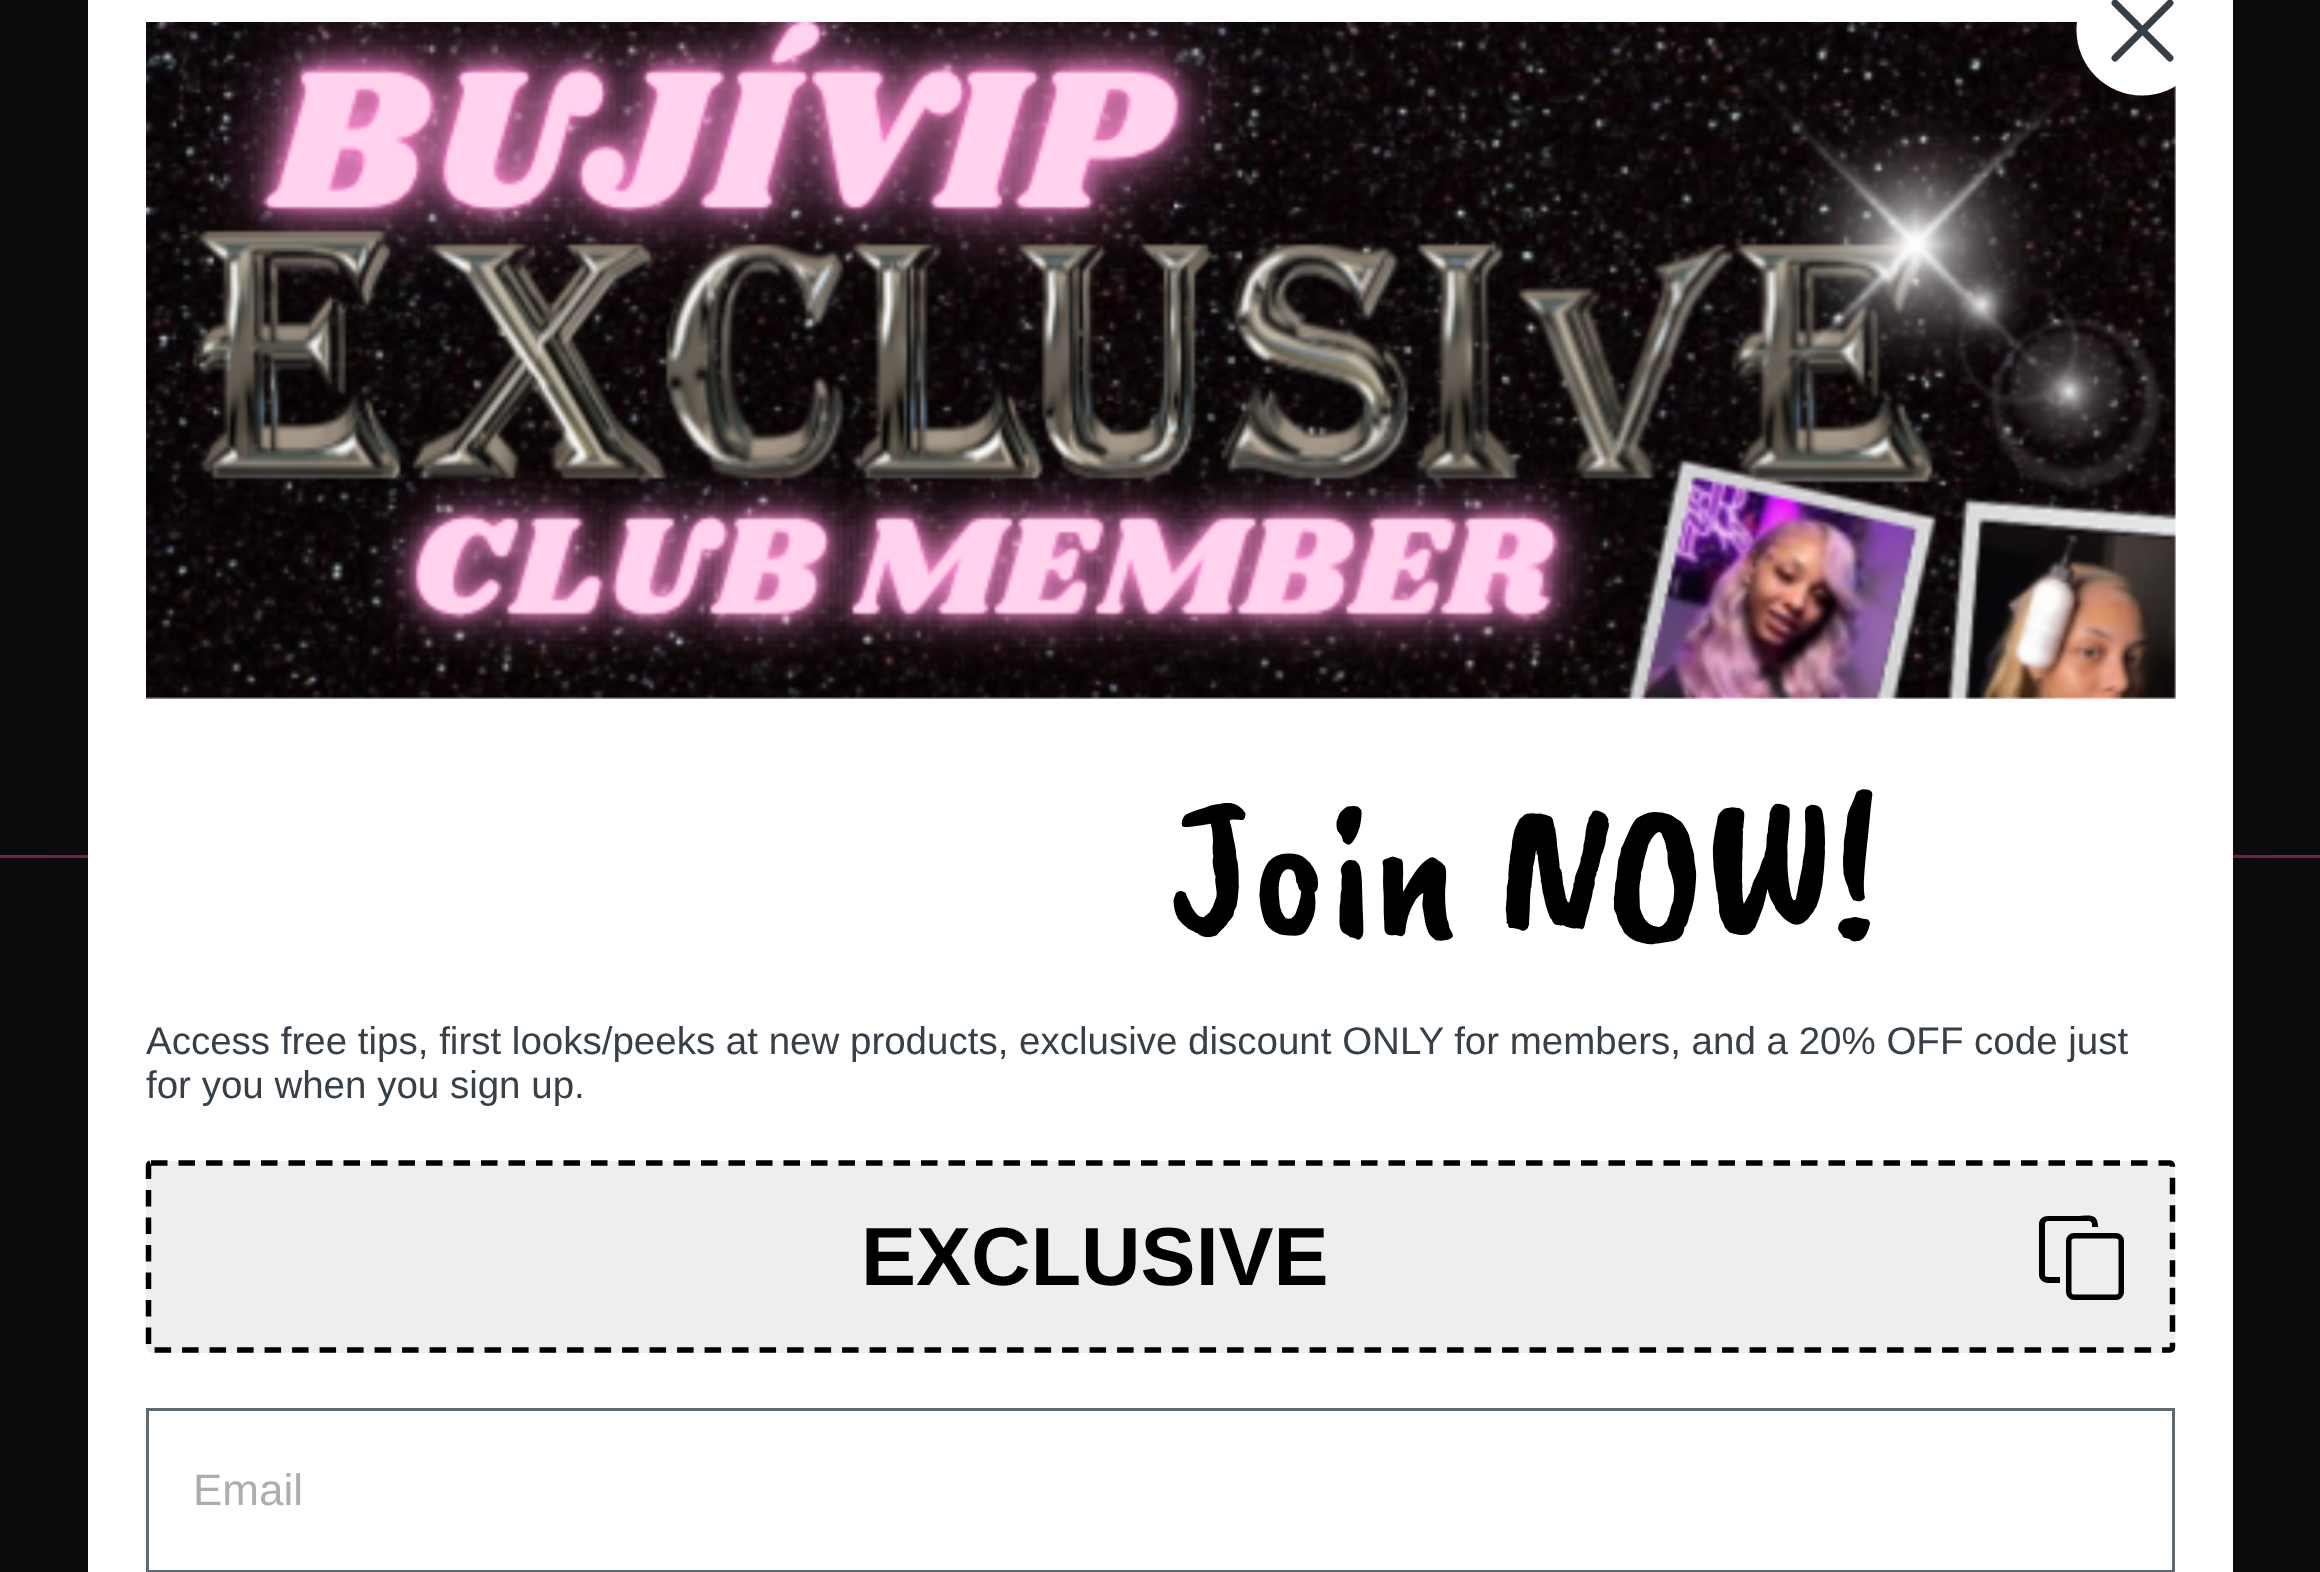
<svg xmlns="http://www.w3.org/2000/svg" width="2320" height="1572">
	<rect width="100%" height="100%" fill="#0C0C0C" />
	<rect x="0" y="855" width="2320" height="3" fill="#722451" />
	<rect x="88" y="-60" width="2145" height="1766" rx="11" fill="#000000" fill-opacity="0.15" filter="blur(41px)" />
	<rect x="88" y="0" width="2145" height="1572" fill="#FFFFFF" />
	<image x="146" y="22" width="2030" height="677" href="assets/img1.png" />
	<circle cx="2142" cy="30" r="65.5" fill="#FFFFFF" />
	<path d="M2115 3L2170 58M2115 58L2170 3Z" fill="none" stroke="#373F47" stroke-width="6.9" stroke-linecap="round" stroke-linejoin="round" />
	<text x="1169" y="935" font-family="Caveat Brush" font-size="198" fill="#000000">Join NOW!</text>
	<g font-family="Liberation Sans" font-size="38.5" fill="#373F47">
		<text x="146" y="1054">Access free tips, first looks/peeks at new products, exclusive discount ONLY for members, and a 20% OFF code just</text>
		<text x="146" y="1098">for you when you sign up.</text>
	</g>
	<rect x="146" y="1161" width="2029" height="192" rx="6" fill="#EEEEEE" />
	<path d="M151 1163H2170C2171.5 1163 2172.5 1164.5 2172.5 1166V1347.5C2172.5 1349 2171.5 1350 2170 1350H151C149.5 1350 148.5 1349 148.5 1347.5V1166C148.5 1164.5 149.5 1163 151 1163Z" fill="none" stroke="#000000" stroke-width="5.5" stroke-dasharray="16.5 11" />
	<text x="861" y="1285" font-family="Liberation Sans" font-size="82.5" font-weight="700" fill="#000000">EXCLUSIVE</text>
	<path d="M2048 1216C2043 1216 2039 1219 2039 1224V1275C2039 1279 2043 1283 2048 1283H2060V1277H2048C2046 1277 2045 1276 2045 1275V1224C2045 1223 2046 1221 2048 1221H2089C2091 1221 2092 1223 2092 1224V1227H2098C2098 1212 2088 1216 2076 1216Z" fill="#000000" fill-rule="evenodd" />
	<rect x="2068.75" y="1235.75" width="52.5" height="61.5" rx="5.25" fill="none" stroke="#000000" stroke-width="5.5" />
	<rect x="147.5" y="1409.5" width="2026" height="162" fill="none" stroke="#606A72" stroke-width="3" />
	<text x="193" y="1505" font-family="Liberation Sans" font-size="44" fill="#ADADAD">Email</text>
</svg>
